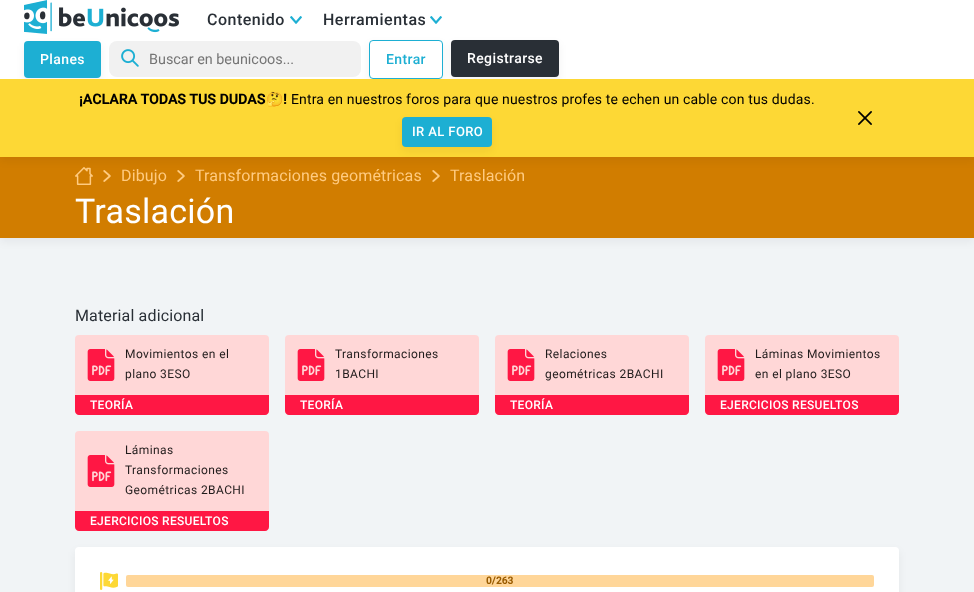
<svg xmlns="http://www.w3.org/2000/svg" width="974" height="592">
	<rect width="100%" height="100%" fill="#F1F4F6" />
	<rect x="0" y="161" width="974" height="81" fill="#040914" fill-opacity="0.05" filter="blur(4px)" />
	<rect x="0" y="157" width="974" height="81" fill="#D17D00" />
	<image x="75" y="167" width="18" height="18" href="assets/img5.png" />
	<image x="103" y="170" width="8" height="12" href="assets/img6.png" />
	<image x="177" y="170" width="8" height="12" href="assets/img6.png" />
	<image x="432" y="170" width="8" height="12" href="assets/img6.png" />
	<rect x="0" y="4" width="974" height="157" fill="#040914" fill-opacity="0.05" filter="blur(4px)" />
	<rect x="0" y="0" width="974" height="79" fill="#FFFFFF" />
	<image x="24" y="0" width="155" height="34" href="assets/img1.png" />
	<text x="207" y="25" font-family="Roboto" font-size="16" font-weight="500" letter-spacing="0.5" fill="#292F36">Contenido</text>
	<image x="290" y="16" width="12" height="8" href="assets/img2.png" />
	<text x="323" y="25" font-family="Roboto" font-size="16" font-weight="500" letter-spacing="0.5" fill="#292F36">Herramientas</text>
	<image x="430" y="16" width="12" height="8" href="assets/img2.png" />
	<rect x="24" y="45" width="77" height="37" rx="4" fill="#040914" fill-opacity="0.05" filter="blur(4px)" />
	<rect x="24" y="41" width="77" height="37" rx="4" fill="#1DAFD3" />
	<text x="40" y="64" font-family="Roboto" font-size="14" font-weight="500" letter-spacing="0.4" fill="#FFFFFF">Planes</text>
	<rect x="109" y="41" width="252" height="36" rx="8" fill="#F1F1F1" />
	<image x="121" y="49" width="18" height="18" href="assets/img3.png" />
	<text x="149" y="64" font-family="Roboto" font-size="14.4" fill="#757575">Buscar en beunicoos...</text>
	<rect x="369" y="44" width="74" height="39" rx="4" fill="#040914" fill-opacity="0.05" filter="blur(4px)" />
	<rect x="369.5" y="40.5" width="73" height="38" rx="3.5" fill="#FFFFFF" stroke="#1DAFD3" />
	<text x="386" y="64" font-family="Roboto" font-size="14" font-weight="500" letter-spacing="0.4" fill="#1DAFD3">Entrar</text>
	<rect x="451" y="44" width="108" height="37" rx="4" fill="#040914" fill-opacity="0.05" filter="blur(4px)" />
	<rect x="451" y="40" width="108" height="37" rx="4" fill="#292F36" />
	<text x="467" y="63" font-family="Roboto" font-size="14" font-weight="500" letter-spacing="0.4" fill="#FFFFFF">Registrarse</text>
	<rect x="0" y="79" width="974" height="78" fill="#FDD835" />
	<text x="79" y="104" font-family="Roboto" font-size="14" font-weight="700" letter-spacing="0.15" fill="#000000">¡ACLARA TODAS TUS DUDAS</text>
	<text x="266" y="104" font-family="Noto Color Emoji" font-size="14" font-weight="700" letter-spacing="0.15" fill="#000000">🤔</text>
	<text x="283" y="104" font-family="Roboto" font-size="14" font-weight="700" letter-spacing="0.15" fill="#000000">!</text>
	<text x="291" y="104" font-family="Roboto" font-size="14" letter-spacing="0.15" fill="#000000">Entra en nuestros foros para que nuestros profes te echen un cable con tus dudas.</text>
	<rect x="402" y="121" width="90" height="30" rx="4" fill="#040914" fill-opacity="0.05" filter="blur(4px)" />
	<rect x="402" y="117" width="90" height="30" rx="4" fill="#1DAFD3" />
	<text x="412" y="136" font-family="Roboto" font-size="13" font-weight="500" letter-spacing="0.4" fill="#FFFFFF">IR AL FORO</text>
	<image x="858" y="111" width="14" height="14" href="assets/img4.png" />
	<g font-family="Roboto" font-size="16" letter-spacing="0.15" fill="#FFCB80">
		<text x="121" y="181">Dibujo</text>
		<text x="195" y="181">Transformaciones geométricas</text>
		<text x="450" y="181">Traslación</text>
	</g>
	<text x="75" y="223" font-family="Roboto" font-size="34" letter-spacing="0.25" fill="#FFFFFF">Traslación</text>
	<text x="75" y="321" font-family="Roboto" font-size="16" letter-spacing="0.15" fill="#292F36">Material adicional</text>
	<rect x="75" y="335" width="194" height="80" rx="4" fill="#FFD7D7" />
	<image x="87" y="349" width="28" height="32" href="assets/img7.png" />
	<g font-family="Roboto" font-size="12" letter-spacing="0.4" fill="#211C1C">
		<text x="125" y="358">Movimientos en el</text>
		<text x="125" y="378">plano 3ESO</text>
	</g>
	<path d="M75 395H269V411C269 413 267 415 265 415H79C77 415 75 413 75 411Z" fill="#FF1744" />
	<text x="90" y="409" font-family="Roboto" font-size="12" font-weight="500" letter-spacing="0.3" fill="#FFFFFF">TEORÍA</text>
	<rect x="285" y="335" width="194" height="80" rx="4" fill="#FFD7D7" />
	<image x="297" y="349" width="28" height="32" href="assets/img7.png" />
	<g font-family="Roboto" font-size="12" letter-spacing="0.4" fill="#211C1C">
		<text x="335" y="358">Transformaciones</text>
		<text x="335" y="378">1BACHI</text>
	</g>
	<path d="M285 395H479V411C479 413 477 415 475 415H289C287 415 285 413 285 411Z" fill="#FF1744" />
	<text x="300" y="409" font-family="Roboto" font-size="12" font-weight="500" letter-spacing="0.3" fill="#FFFFFF">TEORÍA</text>
	<rect x="495" y="335" width="194" height="80" rx="4" fill="#FFD7D7" />
	<image x="507" y="349" width="28" height="32" href="assets/img7.png" />
	<g font-family="Roboto" font-size="12" letter-spacing="0.4" fill="#211C1C">
		<text x="545" y="358">Relaciones</text>
		<text x="545" y="378">geométricas 2BACHI</text>
	</g>
	<path d="M495 395H689V411C689 413 687 415 685 415H499C497 415 495 413 495 411Z" fill="#FF1744" />
	<text x="510" y="409" font-family="Roboto" font-size="12" font-weight="500" letter-spacing="0.3" fill="#FFFFFF">TEORÍA</text>
	<rect x="705" y="335" width="194" height="80" rx="4" fill="#FFD7D7" />
	<image x="717" y="349" width="28" height="32" href="assets/img7.png" />
	<g font-family="Roboto" font-size="12" letter-spacing="0.4" fill="#211C1C">
		<text x="755" y="358">Láminas Movimientos</text>
		<text x="755" y="378">en el plano 3ESO</text>
	</g>
	<path d="M705 395H899V411C899 413 897 415 895 415H709C707 415 705 413 705 411Z" fill="#FF1744" />
	<text x="720" y="409" font-family="Roboto" font-size="12" font-weight="500" letter-spacing="0.3" fill="#FFFFFF">EJERCICIOS RESUELTOS</text>
	<rect x="75" y="431" width="194" height="100" rx="4" fill="#FFD7D7" />
	<image x="87" y="455" width="28" height="32" href="assets/img7.png" />
	<g font-family="Roboto" font-size="12" letter-spacing="0.4" fill="#211C1C">
		<text x="125" y="454">Láminas</text>
		<text x="125" y="474">Transformaciones</text>
		<text x="125" y="494">Geométricas 2BACHI</text>
	</g>
	<path d="M75 511H269V527C269 529 267 531 265 531H79C77 531 75 529 75 527Z" fill="#FF1744" />
	<text x="90" y="525" font-family="Roboto" font-size="12" font-weight="500" letter-spacing="0.3" fill="#FFFFFF">EJERCICIOS RESUELTOS</text>
	<rect x="75" y="551" width="824" height="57" rx="4" fill="#040914" fill-opacity="0.05" filter="blur(4px)" />
	<rect x="75" y="547" width="824" height="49" rx="4" fill="#FFFFFF" />
	<image x="100" y="572" width="18" height="18" href="assets/img8.png" />
	<rect x="126" y="575" width="748" height="12" rx="2" fill="#FFD699" />
	<text x="486" y="584" font-family="Roboto" font-size="10" font-weight="700" letter-spacing="0.15" fill="#995B00">0/263</text>
</svg>
